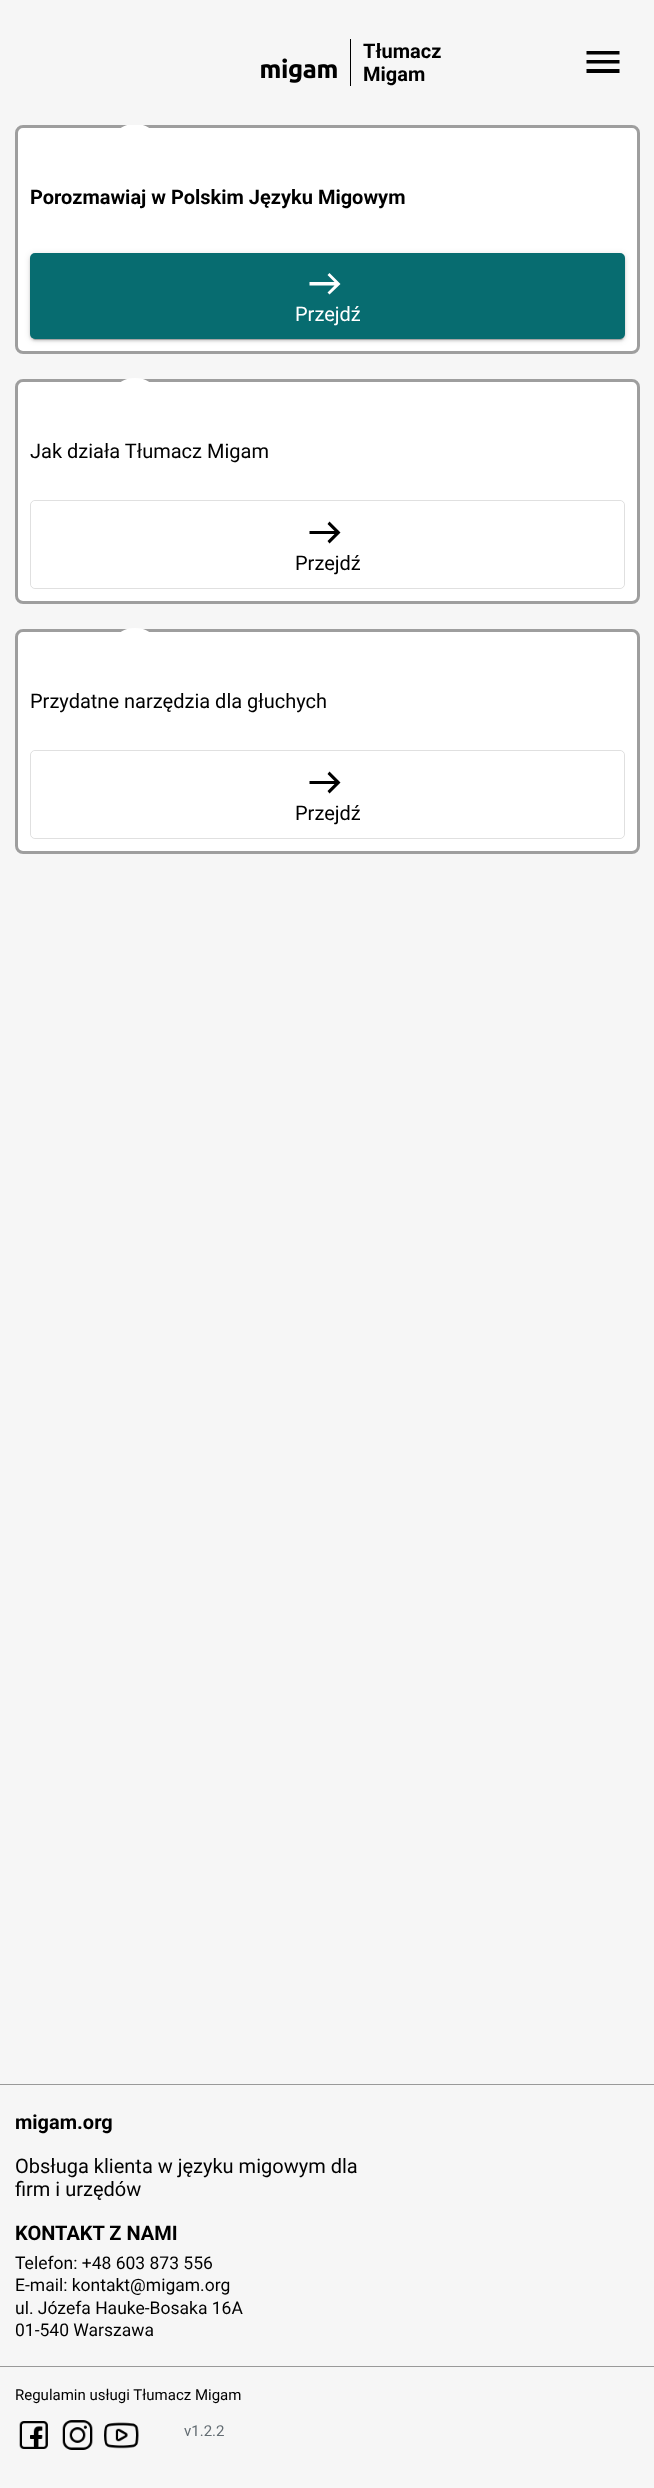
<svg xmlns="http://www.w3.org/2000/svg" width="654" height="2488">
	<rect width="100%" height="100%" fill="#F6F6F6" />
	<rect x="15" y="125" width="625" height="229" rx="8" fill="#FFFFFF" />
	<rect x="16.5" y="126.5" width="622" height="226" rx="6.5" fill="none" stroke="#000000" stroke-opacity="0.38" stroke-width="3" />
	<path d="M135 124C101 124 101 176 135 176C169 176 169 124 135 124ZM135 171C108 171 108 129 135 129C162 129 162 171 135 171ZM129 162L147 150L129 138Z" fill="#FFFFFF" />
	<rect x="128" y="124" width="14" height="1" fill="#F6F6F6" />
	<image x="261" y="58" width="76" height="25" href="assets/img1.png" />
	<rect x="350" y="39" width="1" height="47" fill="#000000" />
	<g font-family="Roboto" font-size="20" font-weight="700" fill="#000000">
		<text x="363" y="58">Tłumacz</text>
		<text x="363" y="81">Migam</text>
	</g>
	<path d="M586.5 73H619.5V69H586.5ZM586.5 63.5H619.5V60H586.5ZM586.5 51V54.5H619.5V51Z" fill="#000000" />
	<text x="30" y="204" font-family="Roboto" font-size="20" font-weight="700" fill="#000000">Porozmawiaj w Polskim Języku Migowym</text>
	<rect x="30" y="254" width="595" height="86" rx="5" fill="#000000" fill-opacity="0.12" filter="blur(3px)" />
	<rect x="30" y="255" width="595" height="86" rx="5" fill="#000000" fill-opacity="0.14" filter="blur(1px)" />
	<rect x="33" y="259" width="590" height="81" rx="2.5" fill="#000000" fill-opacity="0.2" filter="blur(0.5px)" />
	<rect x="30" y="253" width="595" height="86" rx="5" fill="#076C70" />
	<path d="M329.5 273L327.5 275L334.5 282H309.5V285.5H334.5L327.5 292.5L329.5 294.5L340.5 284Z" fill="#FFFFFF" />
	<text x="295" y="321" font-family="Roboto" font-size="20" fill="#FFFFFF">Przejdź</text>
	<rect x="15" y="379" width="625" height="225" rx="8" fill="#FFFFFF" />
	<rect x="16.5" y="380.5" width="622" height="222" rx="6.5" fill="none" stroke="#000000" stroke-opacity="0.38" stroke-width="3" />
	<path d="M135 378C101 378 101 430 135 430C169 430 169 378 135 378ZM135 425C108 425 108 383 135 383C162 383 162 425 135 425ZM129 415L147 404L129 392Z" fill="#FFFFFF" />
	<text x="30" y="458" font-family="Roboto" font-size="20" fill="#000000">Jak działa Tłumacz Migam</text>
	<rect x="30.5" y="500.5" width="594" height="88" rx="4.5" fill="none" stroke="#E0E0E0" />
	<rect x="31" y="501" width="593" height="87" rx="5" fill="#FFFFFF" />
	<path d="M329.5 521.5L327.5 524L334.5 531H309.5V534H334.5L327.5 541L329.5 543.5L340.5 532.5Z" fill="#000000" />
	<text x="295" y="570" font-family="Roboto" font-size="20" fill="#000000">Przejdź</text>
	<rect x="15" y="629" width="625" height="225" rx="8" fill="#FFFFFF" />
	<rect x="16.5" y="630.5" width="622" height="222" rx="6.5" fill="none" stroke="#000000" stroke-opacity="0.38" stroke-width="3" />
	<path d="M135 628C101 628 101 680 135 680C169 680 169 628 135 628ZM135 675C108 675 108 633 135 633C162 633 162 675 135 675ZM129 665L147 654L129 642Z" fill="#FFFFFF" />
	<text x="30" y="708" font-family="Roboto" font-size="20" fill="#000000">Przydatne narzędzia dla głuchych</text>
	<rect x="30.5" y="750.5" width="594" height="88" rx="4.5" fill="none" stroke="#E0E0E0" />
	<rect x="31" y="751" width="593" height="87" rx="5" fill="#FFFFFF" />
	<path d="M329.5 771.5L327.5 774L334.5 781H309.5V784H334.5L327.5 791L329.5 793.5L340.5 782.5Z" fill="#000000" />
	<text x="295" y="820" font-family="Roboto" font-size="20" fill="#000000">Przejdź</text>
	<rect x="0" y="2084" width="654" height="1" fill="#999999" />
	<rect x="0" y="2366" width="654" height="1" fill="#999999" />
	<text x="15" y="2129" font-family="Roboto" font-size="20" font-weight="700" fill="#000000">migam.org</text>
	<g font-family="Roboto" font-size="20" fill="#000000">
		<text x="15" y="2173">Obsługa klienta w języku migowym dla</text>
		<text x="15" y="2196">firm i urzędów</text>
	</g>
	<text x="15" y="2240" font-family="Roboto" font-size="20" font-weight="700" fill="#000000">KONTAKT Z NAMI</text>
	<g font-family="Roboto" font-size="17.5" fill="#000000">
		<text x="15" y="2269">Telefon: +48 603 873 556</text>
		<text x="15" y="2291">E-mail: kontakt@migam.org</text>
		<text x="15" y="2314">ul. Józefa Hauke-Bosaka 16A</text>
		<text x="15" y="2336">01-540 Warszawa</text>
	</g>
	<text x="15" y="2400" font-family="Roboto" font-size="15" fill="#000000">Regulamin usługi Tłumacz Migam</text>
	<image x="19" y="2421" width="29" height="28" href="assets/img2.png" />
	<image x="62" y="2420" width="31" height="30" href="assets/img3.png" />
	<image x="104" y="2422" width="35" height="27" href="assets/img4.png" />
	<text x="184" y="2436" font-family="Roboto" font-size="15" fill="#636C72">v1.2.2</text>
</svg>
